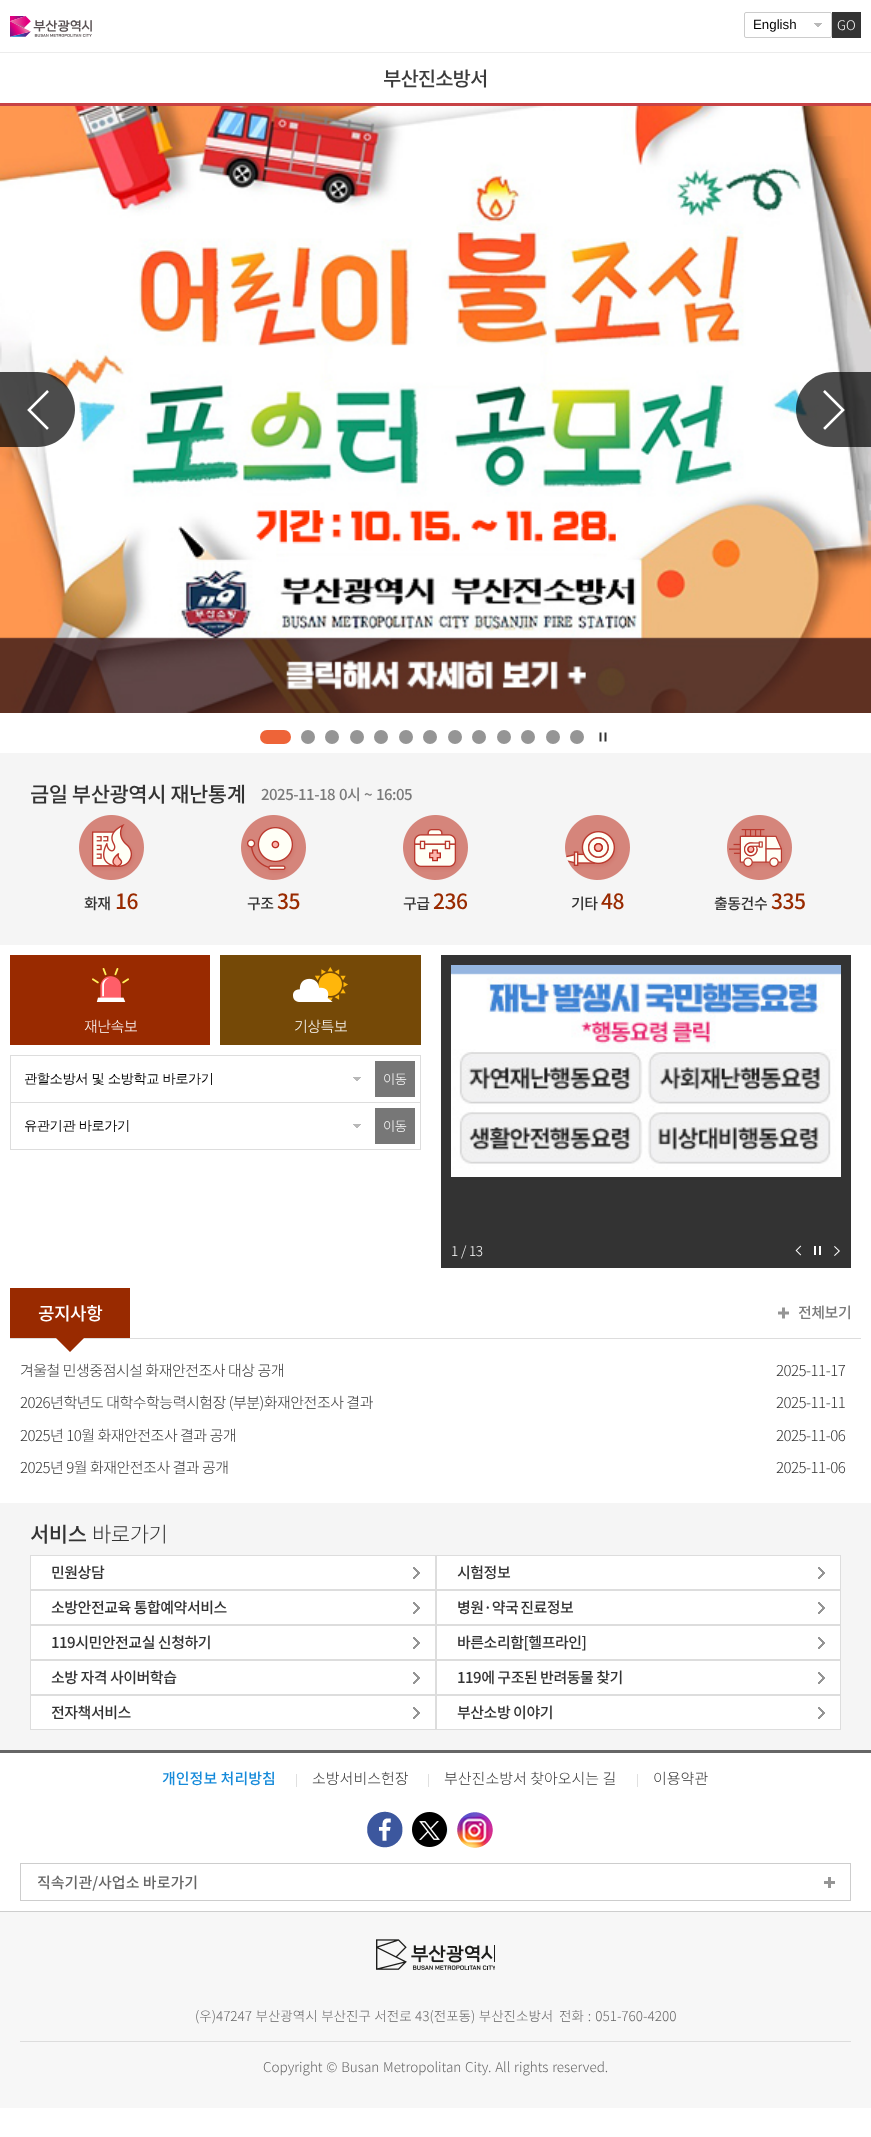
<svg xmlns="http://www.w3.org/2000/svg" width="871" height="2137">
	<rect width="100%" height="100%" fill="#FFFFFF" />
	<rect x="0" y="103" width="871" height="3" fill="#C74245" />
	<rect x="0" y="52" width="871" height="1" fill="#ECECEC" />
	<image x="10" y="16" width="82" height="21" href="assets/img1.png" />
	<image x="814" y="23" width="8" height="4" href="assets/img2.png" />
	<rect x="744.5" y="12.5" width="87" height="25" rx="1.5" fill="none" stroke="#CCCCCC" />
	<text x="753" y="29" font-family="Liberation Sans" font-size="13.3" fill="#000000">English</text>
	<rect x="832" y="12" width="29" height="26" fill="#333333" />
	<text x="837" y="30" font-family="Noto Sans KR" font-size="13.3" font-weight="300" fill="#FFFFFF">GO</text>
	<text x="383" y="86" font-family="Noto Sans KR" font-size="20" font-weight="500" letter-spacing="-1" fill="#3B3B3B">부산진소방서</text>
	<image x="0" y="106" width="871" height="607" href="assets/img3.png" />
	<path d="M0 372H37.5C58 372 75 389 75 409.5C75 430 58 447 37.5 447H0Z" fill="#000000" fill-opacity="0.7" />
	<image x="27" y="390" width="22" height="40" href="assets/img4.png" />
	<path d="M833.5 372H871V447H833.5C813 447 796 430 796 409.5C796 389 813 372 833.5 372Z" fill="#000000" fill-opacity="0.7" />
	<image x="823" y="390" width="22" height="40" href="assets/img5.png" />
	<rect x="260" y="730" width="31" height="14" rx="7" fill="#EE6438" />
	<circle cx="308" cy="737" r="7" fill="#959595" />
	<circle cx="332" cy="737" r="7" fill="#959595" />
	<circle cx="357" cy="737" r="7" fill="#959595" />
	<circle cx="381" cy="737" r="7" fill="#959595" />
	<circle cx="406" cy="737" r="7" fill="#959595" />
	<circle cx="430" cy="737" r="7" fill="#959595" />
	<circle cx="455" cy="737" r="7" fill="#959595" />
	<circle cx="479" cy="737" r="7" fill="#959595" />
	<circle cx="504" cy="737" r="7" fill="#959595" />
	<circle cx="528" cy="737" r="7" fill="#959595" />
	<circle cx="553" cy="737" r="7" fill="#959595" />
	<circle cx="577" cy="737" r="7" fill="#959595" />
	<image x="599" y="732" width="8" height="10" href="assets/img6.png" />
	<rect x="0" y="753" width="871" height="192" fill="#F5F5F5" />
	<text x="30" y="802" font-family="Noto Sans KR" font-size="21" font-weight="500" letter-spacing="-0.5" fill="#333333">금일 부산광역시 재난통계</text>
	<g font-family="Noto Sans KR" font-size="15" font-weight="500" letter-spacing="-0.5" fill="#7A7A7A">
		<text x="261" y="800">2025-11-18</text>
		<text x="339" y="800">0시</text>
		<text x="364" y="800">~</text>
		<text x="376" y="800">16:05</text>
	</g>
	<image x="79" y="815" width="65" height="65" href="assets/img7.png" />
	<text x="84" y="909" font-family="Noto Sans KR" font-size="15" font-weight="500" letter-spacing="-0.5" fill="#333333">화재</text>
	<text x="115" y="909" font-family="Noto Sans KR" font-size="21" font-weight="500" letter-spacing="-0.5" fill="#992A00">16</text>
	<image x="241" y="815" width="65" height="65" href="assets/img8.png" />
	<text x="247" y="909" font-family="Noto Sans KR" font-size="15" font-weight="500" letter-spacing="-0.5" fill="#333333">구조</text>
	<text x="277" y="909" font-family="Noto Sans KR" font-size="21" font-weight="500" letter-spacing="-0.5" fill="#992A00">35</text>
	<image x="403" y="815" width="65" height="65" href="assets/img9.png" />
	<text x="403" y="909" font-family="Noto Sans KR" font-size="15" font-weight="500" letter-spacing="-0.5" fill="#333333">구급</text>
	<text x="433" y="909" font-family="Noto Sans KR" font-size="21" font-weight="500" letter-spacing="-0.5" fill="#992A00">236</text>
	<image x="565" y="815" width="65" height="65" href="assets/img10.png" />
	<text x="571" y="909" font-family="Noto Sans KR" font-size="15" font-weight="500" letter-spacing="-0.5" fill="#333333">기타</text>
	<text x="601" y="909" font-family="Noto Sans KR" font-size="21" font-weight="500" letter-spacing="-0.5" fill="#992A00">48</text>
	<image x="727" y="815" width="65" height="65" href="assets/img11.png" />
	<text x="714" y="909" font-family="Noto Sans KR" font-size="15" font-weight="500" letter-spacing="-0.5" fill="#333333">출동건수</text>
	<text x="771" y="909" font-family="Noto Sans KR" font-size="21" font-weight="500" letter-spacing="-0.5" fill="#992A00">335</text>
	<rect x="10" y="955" width="200" height="90" fill="#992A00" />
	<image x="92" y="968" width="37" height="34" href="assets/img12.png" />
	<text x="84" y="1032" font-family="Noto Sans KR" font-size="15" font-weight="300" letter-spacing="-0.5" fill="#FFFFFF">재난속보</text>
	<rect x="220" y="955" width="201" height="90" fill="#754907" />
	<image x="293" y="967" width="55" height="35" href="assets/img13.png" />
	<text x="294" y="1032" font-family="Noto Sans KR" font-size="15" font-weight="300" letter-spacing="-0.5" fill="#FFFFFF">기상특보</text>
	<rect x="10.5" y="1055.5" width="410" height="94" fill="none" stroke="#DDDDDD" />
	<rect x="11" y="1102" width="409" height="1" fill="#DDDDDD" />
	<image x="353" y="1077" width="8" height="4" href="assets/img2.png" />
	<text x="24" y="1083" font-family="WenQuanYi Zen Hei" font-size="13.3" font-weight="500" letter-spacing="-0.5" fill="#000000">관할소방서 및 소방학교 바로가기</text>
	<rect x="375" y="1061" width="40" height="36" fill="#777777" />
	<text x="383" y="1084" font-family="Noto Sans KR" font-size="13.3" font-weight="300" letter-spacing="-0.5" fill="#FFFFFF">이동</text>
	<image x="353" y="1124" width="8" height="4" href="assets/img2.png" />
	<text x="24" y="1130" font-family="WenQuanYi Zen Hei" font-size="13.3" font-weight="500" letter-spacing="-0.5" fill="#000000">유관기관 바로가기</text>
	<rect x="375" y="1108" width="40" height="36" fill="#777777" />
	<text x="383" y="1131" font-family="Noto Sans KR" font-size="13.3" font-weight="300" letter-spacing="-0.5" fill="#FFFFFF">이동</text>
	<rect x="441" y="955" width="410" height="313" fill="#333333" />
	<image x="451" y="965" width="390" height="212" href="assets/img14.png" />
	<g font-family="Noto Sans KR" font-size="13.5" font-weight="300" letter-spacing="-0.5" fill="#FFFFFF">
		<text x="451" y="1256">1</text>
		<text x="461" y="1256">/</text>
		<text x="469" y="1256">13</text>
	</g>
	<image x="795" y="1245" width="7" height="11" href="assets/img15.png" />
	<image x="814" y="1246" width="7" height="9" href="assets/img16.png" />
	<image x="834" y="1246" width="6" height="10" href="assets/img17.png" />
	<rect x="10" y="1338" width="851" height="1" fill="#DDDDDD" />
	<image x="778" y="1307" width="11" height="12" href="assets/img18.png" />
	<text x="798" y="1318" font-family="Noto Sans KR" font-size="15" font-weight="500" letter-spacing="-0.5" fill="#7A7A7A">전체보기</text>
	<g font-family="Noto Sans KR" font-size="15" font-weight="300" letter-spacing="-0.5" fill="#333333">
		<text x="20" y="1376">겨울철 민생중점시설 화재안전조사 대상 공개</text>
		<text x="776" y="1376">2025-11-17</text>
		<text x="20" y="1408">2026년학년도 대학수학능력시험장 (부분)화재안전조사 결과</text>
		<text x="776" y="1408">2025-11-11</text>
		<text x="20" y="1441">2025년 10월 화재안전조사 결과 공개</text>
		<text x="776" y="1441">2025-11-06</text>
		<text x="20" y="1473">2025년 9월 화재안전조사 결과 공개</text>
		<text x="776" y="1473">2025-11-06</text>
	</g>
	<rect x="10" y="1288" width="120" height="50" fill="#992A00" />
	<text x="38" y="1320" font-family="Noto Sans KR" font-size="18" font-weight="500" letter-spacing="-0.5" fill="#FFFFFF">공지사항</text>
	<path d="M84 1338L70 1352V1338ZM70 1352L56 1338H70Z" fill="#992A00" />
	<rect x="0" y="1503" width="871" height="247" fill="#F5F5F5" />
	<text x="30" y="1542" font-family="Noto Sans KR" font-size="21" font-weight="500" letter-spacing="-0.5" fill="#333333">서비스</text>
	<text x="92" y="1542" font-family="Noto Sans KR" font-size="21" font-weight="300" letter-spacing="-0.5" fill="#333333">바로가기</text>
	<rect x="31" y="1556" width="404" height="33" fill="#FFFFFF" />
	<image x="413" y="1567" width="7" height="12" href="assets/img19.png" />
	<rect x="30.5" y="1555.5" width="405" height="34" fill="none" stroke="#DDDDDD" />
	<text x="51" y="1578" font-family="Noto Sans KR" font-size="15" font-weight="500" letter-spacing="-0.5" fill="#333333">민원상담</text>
	<rect x="437" y="1556" width="403" height="33" fill="#FFFFFF" />
	<image x="818" y="1567" width="7" height="12" href="assets/img19.png" />
	<rect x="436.5" y="1555.5" width="404" height="34" fill="none" stroke="#DDDDDD" />
	<text x="457" y="1578" font-family="Noto Sans KR" font-size="15" font-weight="500" letter-spacing="-0.5" fill="#333333">시험정보</text>
	<rect x="31" y="1591" width="404" height="33" fill="#FFFFFF" />
	<image x="413" y="1602" width="7" height="12" href="assets/img19.png" />
	<rect x="30.5" y="1590.5" width="405" height="34" fill="none" stroke="#DDDDDD" />
	<text x="51" y="1613" font-family="Noto Sans KR" font-size="15" font-weight="500" letter-spacing="-0.5" fill="#333333">소방안전교육 통합예약서비스</text>
	<rect x="437" y="1591" width="403" height="33" fill="#FFFFFF" />
	<image x="818" y="1602" width="7" height="12" href="assets/img19.png" />
	<rect x="436.5" y="1590.5" width="404" height="34" fill="none" stroke="#DDDDDD" />
	<text x="457" y="1613" word-spacing="-1" font-family="Noto Sans KR" font-size="15" font-weight="500" letter-spacing="-0.5" fill="#333333">병원·약국 진료정보</text>
	<rect x="31" y="1626" width="404" height="33" fill="#FFFFFF" />
	<image x="413" y="1637" width="7" height="12" href="assets/img19.png" />
	<rect x="30.5" y="1625.5" width="405" height="34" fill="none" stroke="#DDDDDD" />
	<text x="51" y="1648" font-family="Noto Sans KR" font-size="15" font-weight="500" letter-spacing="-0.5" fill="#333333">119시민안전교실 신청하기</text>
	<rect x="437" y="1626" width="403" height="33" fill="#FFFFFF" />
	<image x="818" y="1637" width="7" height="12" href="assets/img19.png" />
	<rect x="436.5" y="1625.5" width="404" height="34" fill="none" stroke="#DDDDDD" />
	<text x="457" y="1648" font-family="Noto Sans KR" font-size="15" font-weight="500" letter-spacing="-0.5" fill="#333333">바른소리함[헬프라인]</text>
	<rect x="31" y="1661" width="404" height="33" fill="#FFFFFF" />
	<image x="413" y="1672" width="7" height="12" href="assets/img19.png" />
	<rect x="30.5" y="1660.5" width="405" height="34" fill="none" stroke="#DDDDDD" />
	<text x="51" y="1683" font-family="Noto Sans KR" font-size="15" font-weight="500" letter-spacing="-0.5" fill="#333333">소방 자격 사이버학습</text>
	<rect x="437" y="1661" width="403" height="33" fill="#FFFFFF" />
	<image x="818" y="1672" width="7" height="12" href="assets/img19.png" />
	<rect x="436.5" y="1660.5" width="404" height="34" fill="none" stroke="#DDDDDD" />
	<text x="457" y="1683" font-family="Noto Sans KR" font-size="15" font-weight="500" letter-spacing="-0.5" fill="#333333">119에 구조된 반려동물 찾기</text>
	<rect x="31" y="1696" width="404" height="33" fill="#FFFFFF" />
	<image x="413" y="1707" width="7" height="12" href="assets/img19.png" />
	<rect x="30.5" y="1695.5" width="405" height="34" fill="none" stroke="#DDDDDD" />
	<text x="51" y="1718" font-family="Noto Sans KR" font-size="15" font-weight="500" letter-spacing="-0.5" fill="#333333">전자책서비스</text>
	<rect x="437" y="1696" width="403" height="33" fill="#FFFFFF" />
	<image x="818" y="1707" width="7" height="12" href="assets/img19.png" />
	<rect x="436.5" y="1695.5" width="404" height="34" fill="none" stroke="#DDDDDD" />
	<text x="457" y="1718" font-family="Noto Sans KR" font-size="15" font-weight="500" letter-spacing="-0.5" fill="#333333">부산소방 이야기</text>
	<rect x="0" y="1911" width="871" height="1" fill="#CECECE" />
	<rect x="0" y="1750" width="871" height="3" fill="#666666" />
	<text x="162" y="1784" font-family="Noto Sans KR" font-size="15" font-weight="500" fill="#158ADA">개인정보 처리방침</text>
	<rect x="296" y="1774" width="1" height="13" fill="#E0E0E0" />
	<text x="312" y="1784" font-family="Noto Sans KR" font-size="15" font-weight="300" fill="#333333">소방서비스헌장</text>
	<rect x="428" y="1774" width="1" height="13" fill="#E0E0E0" />
	<text x="444" y="1784" font-family="Noto Sans KR" font-size="15" font-weight="300" fill="#333333">부산진소방서 찾아오시는 길</text>
	<rect x="637" y="1774" width="1" height="13" fill="#E0E0E0" />
	<text x="653" y="1784" font-family="Noto Sans KR" font-size="15" font-weight="300" fill="#333333">이용약관</text>
	<image x="367" y="1811" width="36" height="37" href="assets/img20.png" />
	<image x="412" y="1812" width="36" height="35" href="assets/img21.png" />
	<image x="457" y="1812" width="36" height="36" href="assets/img22.png" />
	<rect x="20.5" y="1863.5" width="830" height="37" fill="none" stroke="#CDCDCD" />
	<text x="37" y="1888" font-family="Noto Sans KR" font-size="15" font-weight="500" fill="#666666">직속기관/사업소 바로가기</text>
	<image x="824" y="1877" width="11" height="11" href="assets/img23.png" />
	<rect x="0" y="1912" width="871" height="196" fill="#F7F7F7" />
	<image x="376" y="1939" width="119" height="31" href="assets/img24.png" />
	<g font-family="Noto Sans KR" font-size="13.5" font-weight="300" fill="#666666">
		<text x="195" y="2021" word-spacing="0.5">(우)47247 부산광역시 부산진구 서전로 43(전포동) 부산진소방서</text>
		<text x="559" y="2021" word-spacing="1">전화 : 051-760-4200</text>
	</g>
	<rect x="20" y="2041" width="831" height="1" fill="#DDDDDD" />
	<text x="263" y="2072" word-spacing="0.75" font-family="Noto Sans KR" font-size="13.5" font-weight="300" fill="#666666">Copyright © Busan Metropolitan City. All rights reserved.</text>
</svg>
